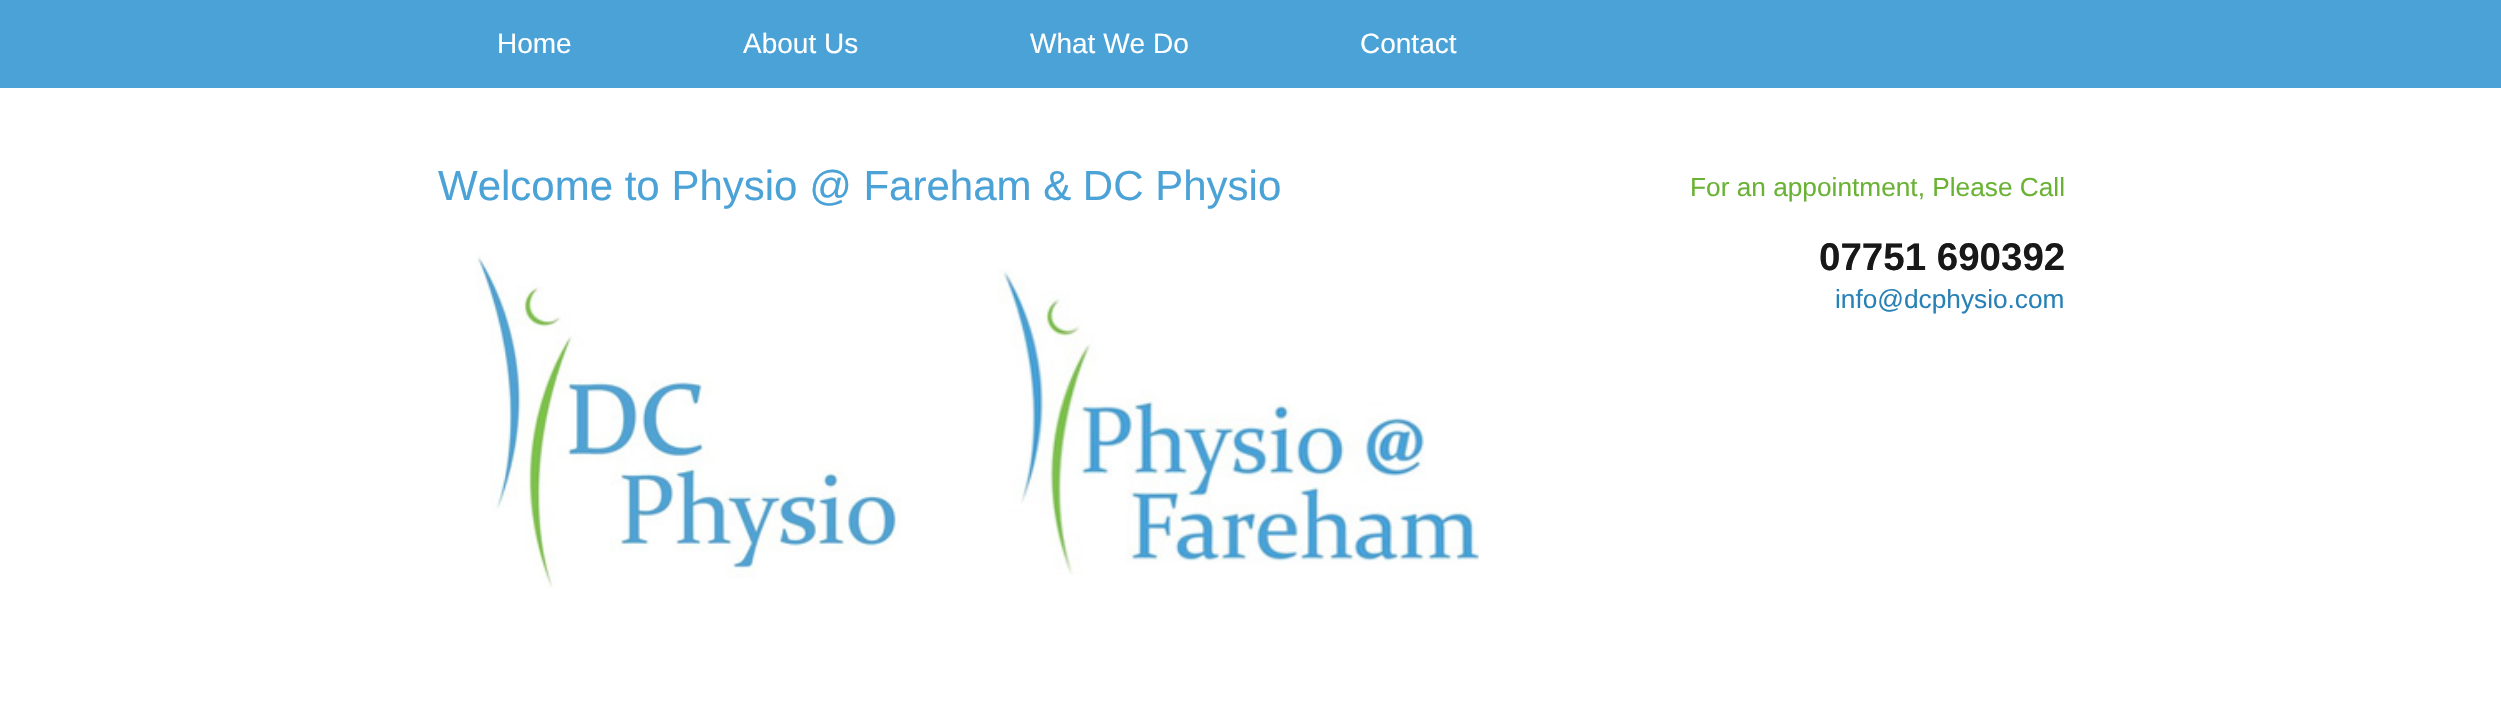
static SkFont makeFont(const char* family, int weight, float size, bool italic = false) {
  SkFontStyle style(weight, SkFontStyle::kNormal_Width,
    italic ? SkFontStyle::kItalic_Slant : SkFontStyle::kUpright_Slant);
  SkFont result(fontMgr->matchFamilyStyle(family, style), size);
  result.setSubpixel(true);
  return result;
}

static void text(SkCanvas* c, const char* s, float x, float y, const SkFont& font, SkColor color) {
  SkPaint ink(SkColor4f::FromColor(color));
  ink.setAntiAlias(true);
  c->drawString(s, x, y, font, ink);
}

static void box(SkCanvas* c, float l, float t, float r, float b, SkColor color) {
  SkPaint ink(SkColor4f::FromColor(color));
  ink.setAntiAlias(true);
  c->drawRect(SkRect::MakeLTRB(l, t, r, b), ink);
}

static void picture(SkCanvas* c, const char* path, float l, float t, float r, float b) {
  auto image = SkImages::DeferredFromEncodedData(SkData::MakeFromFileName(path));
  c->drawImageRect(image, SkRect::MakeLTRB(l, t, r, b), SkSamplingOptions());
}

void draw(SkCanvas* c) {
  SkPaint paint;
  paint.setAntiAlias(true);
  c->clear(0xffffffff);
  box(c, 0, 0, 2501, 88, 0xff4aa2d6);
  SkFont face1 = makeFont("Liberation Sans", 400, 28);
  text(c, "Home", 497, 53, face1, 0xffffffff);
  text(c, "About Us", 743, 53, face1, 0xffffffff);
  text(c, "What We Do", 1030, 53, face1, 0xffffffff);
  text(c, "Contact", 1360, 53, face1, 0xffffffff);
  SkFont face2 = makeFont("Liberation Sans", 400, 42);
  text(c, "Welcome to Physio @ Fareham & DC Physio", 438, 200, face2, 0xff4aa2d6);
  picture(c, "img_01.png", 474, 252, 901, 588);
  picture(c, "img_02.png", 997, 268, 1479, 575);
  SkFont face3 = makeFont("Liberation Sans", 400, 26.25f);
  text(c, "For an appointment, Please Call", 1690, 196, face3, 0xff6ab234);
  SkFont face4 = makeFont("Liberation Sans", 700, 38.5f);
  text(c, "07751 690392", 1819, 270, face4, 0xff181818);
  text(c, "info@dcphysio.com", 1835, 308, face3, 0xff2881b6);
}
